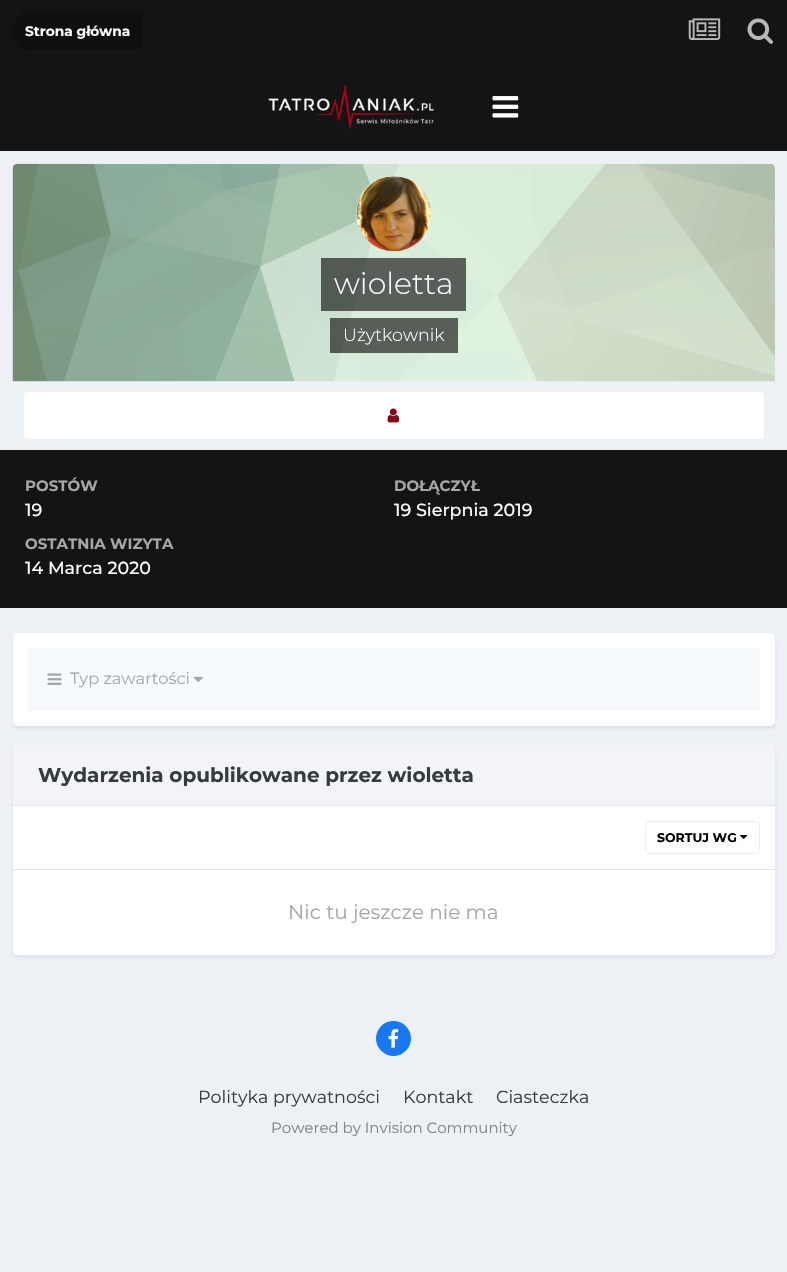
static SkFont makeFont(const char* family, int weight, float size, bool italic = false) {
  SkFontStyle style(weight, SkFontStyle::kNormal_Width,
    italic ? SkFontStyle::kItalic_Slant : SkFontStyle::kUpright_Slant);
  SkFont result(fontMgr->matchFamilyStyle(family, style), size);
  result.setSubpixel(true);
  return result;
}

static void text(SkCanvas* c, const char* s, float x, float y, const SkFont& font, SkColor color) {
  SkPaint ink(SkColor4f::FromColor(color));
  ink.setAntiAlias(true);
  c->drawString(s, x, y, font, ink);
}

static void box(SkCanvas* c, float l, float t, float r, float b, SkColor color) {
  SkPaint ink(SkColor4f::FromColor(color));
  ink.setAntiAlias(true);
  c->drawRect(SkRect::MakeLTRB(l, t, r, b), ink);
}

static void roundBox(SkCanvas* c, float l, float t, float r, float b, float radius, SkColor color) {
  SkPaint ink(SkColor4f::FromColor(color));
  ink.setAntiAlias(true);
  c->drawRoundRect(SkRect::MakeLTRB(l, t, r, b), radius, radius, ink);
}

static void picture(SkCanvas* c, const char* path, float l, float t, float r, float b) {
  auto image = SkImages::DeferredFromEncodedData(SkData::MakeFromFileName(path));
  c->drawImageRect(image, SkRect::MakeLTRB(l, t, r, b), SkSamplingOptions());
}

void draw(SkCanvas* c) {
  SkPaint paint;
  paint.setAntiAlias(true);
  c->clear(0xffedf0f4);
  box(c, 0, 0, 787, 151, 0xff141414);
  picture(c, "img_01.png", 268, 84, 434, 130);
  picture(c, "img_02.png", 492, 96, 519, 118);
  paint.setColor(0xff0f0f0f);
  c->drawPath(SkPathBuilder().moveTo(25, 13).lineTo(137, 13).cubicTo(140.5f, 13, 143, 15.5f, 143, 19).lineTo(143, 44).cubicTo(143, 47.5f, 140.5f, 50, 137, 50).lineTo(25, 50).close().detach(), paint);
  c->drawPath(SkPathBuilder().moveTo(25, 49.5f).cubicTo(19.5f, 49.5f, 16.5f, 43, 14, 39.5f).cubicTo(12, 37, 9.5f, 34.5f, 9.5f, 31).lineTo(25, 31).close().moveTo(25, 12.5f).lineTo(25, 31).lineTo(9.5f, 31).cubicTo(9, 29, 11.5f, 26.5f, 12.5f, 25).cubicTo(15.5f, 21, 19.5f, 12.5f, 25, 12.5f).close().detach(), paint);
  SkFont face1 = makeFont("Montserrat", 700, 13.75f);
  text(c, "Strona główna", 25, 36, face1, 0xfffcfcfc);
  picture(c, "img_03.png", 688, 18, 721, 40);
  picture(c, "img_04.png", 747, 18, 773, 44);
  paint.setColor(0xff99ff9e);
  c->drawPath(SkPathBuilder().moveTo(18, 164).lineTo(770, 164).cubicTo(773, 164, 775, 166, 775, 169).lineTo(775, 381).lineTo(13, 381).lineTo(13, 169).cubicTo(13, 166, 15, 164, 18, 164).close().detach(), paint);
  box(c, 13, 381, 775, 450, 0xffedf2f7);
  picture(c, "img_05.png", 12, 163, 775, 382);
  paint.setColor(0xffffffff);
  c->drawCircle(393.5f, 213.5f, 37.5f, paint);
  picture(c, "img_06.png", 356, 176, 431, 252);
  box(c, 321, 258, 466, 311, 0x99000000);
  SkFont face2 = makeFont("Montserrat", 300, 30);
  text(c, "wioletta", 334, 294, face2, 0xfffcfcfc);
  box(c, 330, 318, 458, 353, 0x99000000);
  SkFont face3 = makeFont("Montserrat", 300, 17.5f);
  text(c, "Użytkownik", 343, 341, face3, 0xfffcfcfc);
  roundBox(c, 23, 391, 765, 440, 5, 0xffffffff);
  paint.setStyle(SkPaint::kStroke_Style);
  paint.setStrokeWidth(1);
  paint.setColor(0x12870015);
  c->drawRoundRect(SkRect::MakeLTRB(23.5f, 391.5f, 764.5f, 439.5f), 4.5f, 4.5f, paint);
  picture(c, "img_07.png", 387, 408, 400, 423);
  box(c, 0, 450, 787, 608, 0xff141414);
  SkFont face4 = makeFont("Montserrat", 700, 15);
  text(c, "POSTÓW", 25, 491, face4, 0xffa3a7a8);
  SkFont face5 = makeFont("Montserrat", 500, 17.5f);
  text(c, "19", 25, 516, face5, 0xfffcfcfc);
  text(c, "DOŁĄCZYŁ", 394, 491, face4, 0xffa3a7a8);
  text(c, "19 Sierpnia 2019", 394, 516, face5, 0xfffcfcfc);
  text(c, "OSTATNIA WIZYTA", 25, 549, face4, 0xffa3a7a8);
  text(c, "14 Marca 2020", 25, 574, face5, 0xfffcfcfc);
  paint.setStyle(SkPaint::kFill_Style);
  paint.setColor(0x1a141414);
  paint.setMaskFilter(SkMaskFilter::MakeBlur(kNormal_SkBlurStyle, 2.5f));
  c->drawRoundRect(SkRect::MakeLTRB(14, 636, 774, 728), 4, 4, paint);
  paint.setMaskFilter(nullptr);
  roundBox(c, 13, 633, 775, 726, 5, 0xffffffff);
  box(c, 28, 648, 760, 711, 0xfff7fafc);
  picture(c, "img_08.png", 47, 673, 62, 685);
  SkFont face6 = makeFont("Montserrat", 400, 16.25f);
  text(c, "Typ zawartości", 70, 684, face6, 0xffa3a7a8);
  picture(c, "img_09.png", 193, 676, 203, 682);
  paint.setMaskFilter(SkMaskFilter::MakeBlur(kNormal_SkBlurStyle, 2.5f));
  c->drawRoundRect(SkRect::MakeLTRB(14, 749, 774, 956), 4, 4, paint);
  paint.setMaskFilter(nullptr);
  roundBox(c, 13, 745, 775, 955, 5, 0xffffffff);
  paint.setColor(0xfff2f4f7);
  c->drawPath(SkPathBuilder().moveTo(18, 745).lineTo(770, 745).cubicTo(773, 745, 775, 747, 775, 750).lineTo(775, 806).lineTo(13, 806).lineTo(13, 750).cubicTo(13, 747, 15, 745, 18, 745).close().detach(), paint);
  box(c, 13, 805, 775, 806, 0xffe6e8eb);
  SkFont face7 = makeFont("Montserrat", 700, 20);
  text(c, "Wydarzenia opublikowane przez wioletta", 38, 782, face7, 0xff353c41);
  box(c, 13, 869, 775, 870, 0xffe1e2e3);
  picture(c, "img_10.png", 740, 835, 748, 839);
  paint.setStyle(SkPaint::kStroke_Style);
  paint.setColor(0xffebecec);
  c->drawRoundRect(SkRect::MakeLTRB(645.5f, 821.5f, 759.5f, 853.5f), 4.5f, 4.5f, paint);
  SkFont face8 = makeFont("Montserrat", 700, 12.5f);
  text(c, "SORTUJ WG", 657, 842, face8, 0xff000000);
  SkFont face9 = makeFont("Montserrat", 400, 20);
  text(c, "Nic tu jeszcze nie ma", 288, 919, face9, 0xffa3a7a8);
  paint.setStyle(SkPaint::kFill_Style);
  paint.setColor(0xff1778f2);
  c->drawCircle(393.5f, 1038.5f, 17.5f, paint);
  picture(c, "img_11.png", 388, 1029, 399, 1048);
  SkFont face10 = makeFont("Montserrat", 400, 17.5f);
  text(c, "Polityka prywatności", 198, 1103, face10, 0xff353c41);
  text(c, "Kontakt", 403, 1103, face10, 0xff353c41);
  text(c, "Ciasteczka", 496, 1103, face10, 0xff353c41);
  SkFont face11 = makeFont("Montserrat", 400, 15);
  text(c, "Powered by Invision Community", 271, 1133, face11, 0xff7f8489);
}
